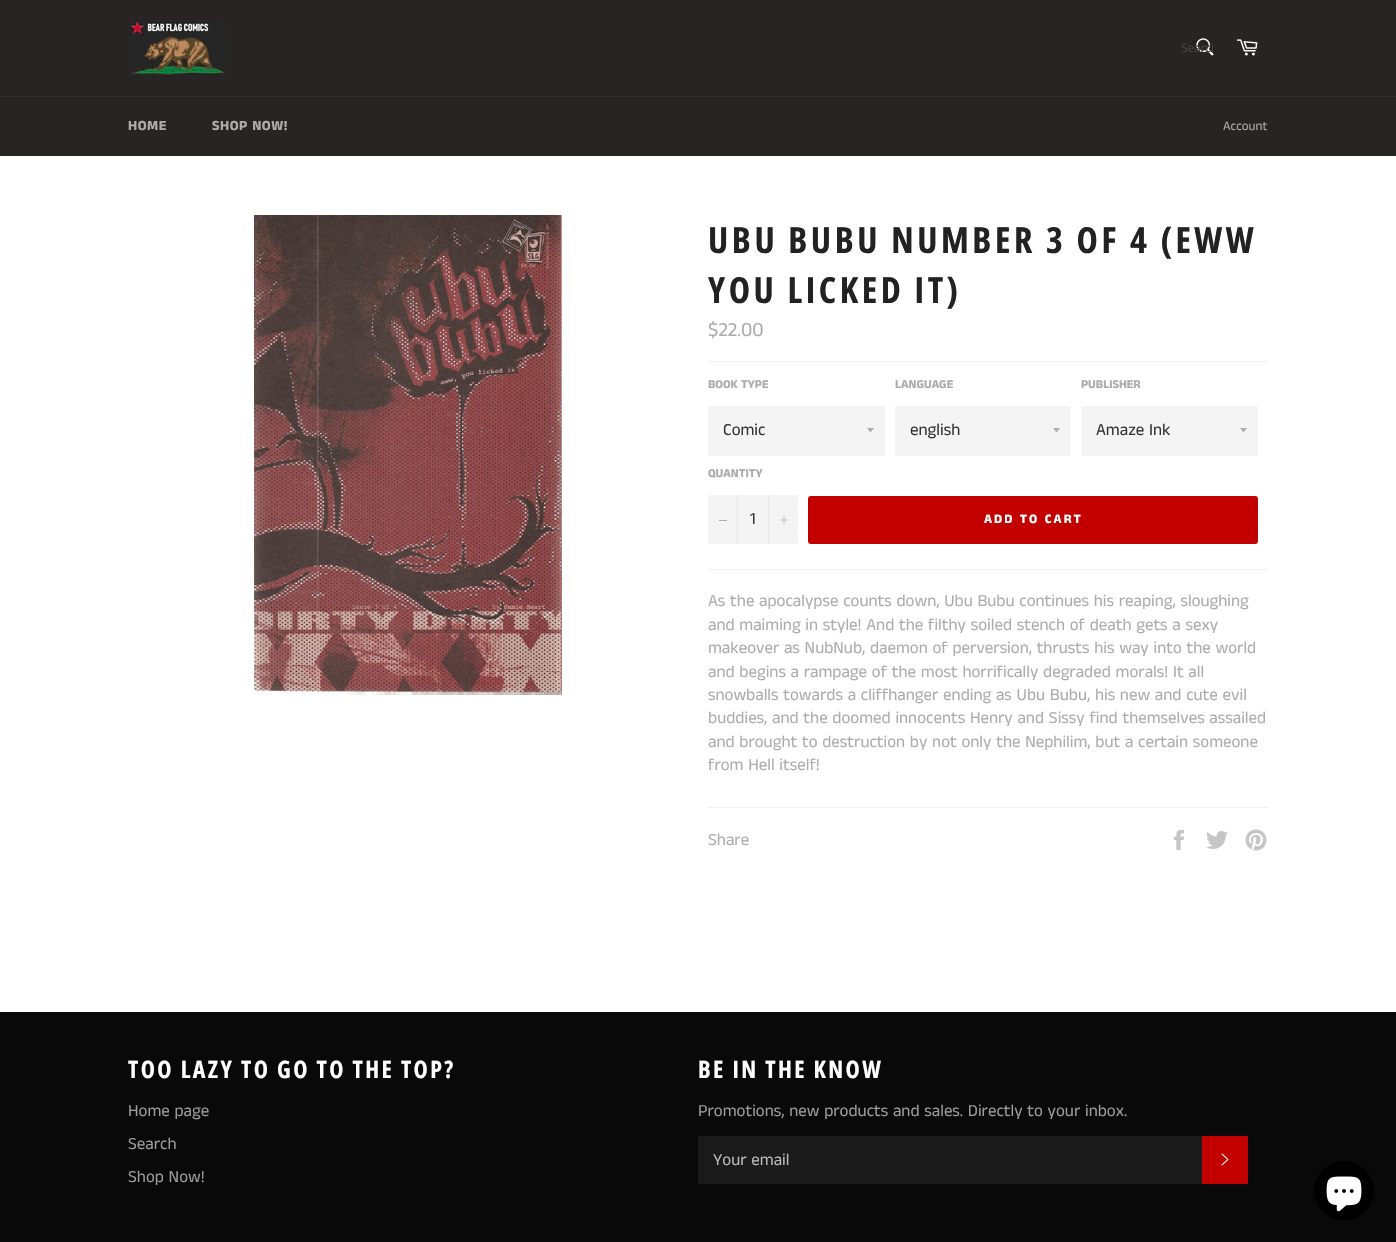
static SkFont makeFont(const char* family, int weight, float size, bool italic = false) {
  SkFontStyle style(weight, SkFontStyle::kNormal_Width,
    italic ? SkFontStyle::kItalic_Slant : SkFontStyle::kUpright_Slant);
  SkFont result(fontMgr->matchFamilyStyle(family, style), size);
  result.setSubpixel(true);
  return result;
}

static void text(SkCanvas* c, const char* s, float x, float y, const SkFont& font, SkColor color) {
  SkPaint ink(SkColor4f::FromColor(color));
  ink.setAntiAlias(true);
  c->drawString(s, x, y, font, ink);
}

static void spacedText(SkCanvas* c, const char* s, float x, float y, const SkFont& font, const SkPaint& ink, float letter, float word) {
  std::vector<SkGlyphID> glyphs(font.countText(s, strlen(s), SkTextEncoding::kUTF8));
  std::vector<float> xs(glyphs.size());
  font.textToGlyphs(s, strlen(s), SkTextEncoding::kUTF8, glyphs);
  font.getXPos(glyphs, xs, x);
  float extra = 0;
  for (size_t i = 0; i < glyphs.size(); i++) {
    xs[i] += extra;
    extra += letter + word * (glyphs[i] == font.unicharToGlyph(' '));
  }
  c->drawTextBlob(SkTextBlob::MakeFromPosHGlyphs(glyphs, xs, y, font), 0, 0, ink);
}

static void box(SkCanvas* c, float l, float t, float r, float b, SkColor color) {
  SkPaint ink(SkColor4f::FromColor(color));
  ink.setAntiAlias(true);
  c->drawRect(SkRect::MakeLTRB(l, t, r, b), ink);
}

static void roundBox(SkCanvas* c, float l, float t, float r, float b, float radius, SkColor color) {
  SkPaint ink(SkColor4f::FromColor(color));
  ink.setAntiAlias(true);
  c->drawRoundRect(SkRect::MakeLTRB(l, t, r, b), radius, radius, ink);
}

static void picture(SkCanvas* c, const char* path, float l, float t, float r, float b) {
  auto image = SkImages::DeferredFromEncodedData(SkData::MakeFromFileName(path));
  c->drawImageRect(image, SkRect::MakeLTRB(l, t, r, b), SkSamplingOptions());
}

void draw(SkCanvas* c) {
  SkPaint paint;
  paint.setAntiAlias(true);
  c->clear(0xff282424);
  picture(c, "img_01.png", 128, 20, 227, 76);
  picture(c, "img_02.png", 1196, 38, 1214, 56);
  c->save();
  c->clipRect(SkRect::MakeLTRB(1181, 39, 1213, 58));
  SkFont face1 = makeFont("Anek Tamil", 400, 13);
  text(c, "Search", 1181, 52, face1, 0xff454141);
  c->restore();
  picture(c, "img_03.png", 1236, 39, 1258, 56);
  box(c, 0, 96, 1396, 97, 0xff353030);
  SkFont face2 = makeFont("Anek Tamil", 700, 14);
  paint.setColor(0xffacacac);
  spacedText(c, "HOME", 128, 130, face2, paint, 0.5f, 0);
  spacedText(c, "SHOP NOW!", 212, 130, face2, paint, 0.5f, 0);
  text(c, "Account", 1223, 130, face1, 0xffacacac);
  box(c, 0, 156, 1396, 1012, 0xffffffff);
  picture(c, "img_04.png", 254, 215, 562, 695);
  SkFont face3 = makeFont("Open Sans Condensed", 700, 36);
  paint.setColor(0xff222222);
  spacedText(c, "UBU BUBU NUMBER 3 OF 4 (EWW", 708, 253, face3, paint, 3.6f, 0);
  spacedText(c, "YOU LICKED IT)", 708, 303, face3, paint, 3.6f, 0);
  SkFont face4 = makeFont("Anek Tamil", 400, 20);
  text(c, "$22.00", 708, 336, face4, 0xffacacac);
  box(c, 708, 361, 1268, 362, 0xfff0f0f0);
  SkFont face5 = makeFont("Anek Tamil", 700, 12);
  text(c, "BOOK TYPE", 708, 388, face5, 0xffacacac);
  box(c, 708, 406, 885, 456, 0xfff4f4f4);
  paint.setColor(0xffacacac);
  c->drawPath(SkPathBuilder().moveTo(867, 428).cubicTo(871.5f, 433.5f, 869.5f, 433.5f, 874, 428).close().detach(), paint);
  SkFont face6 = makeFont("Anek Tamil", 400, 17);
  text(c, "Comic", 723, 435, face6, 0xff333333);
  text(c, "LANGUAGE", 895, 388, face5, 0xffacacac);
  box(c, 895, 406, 1071, 456, 0xfff4f4f4);
  c->drawPath(SkPathBuilder().moveTo(1053, 428).cubicTo(1057.5f, 433.5f, 1055.5f, 433.5f, 1060, 428).close().detach(), paint);
  text(c, "english", 910, 435, face6, 0xff333333);
  text(c, "PUBLISHER", 1081, 388, face5, 0xffacacac);
  box(c, 1081, 406, 1258, 456, 0xfff4f4f4);
  c->drawPath(SkPathBuilder().moveTo(1240, 428).cubicTo(1244.5f, 433.5f, 1242.5f, 433.5f, 1247, 428).close().detach(), paint);
  text(c, "Amaze Ink", 1096, 435, face6, 0xff333333);
  text(c, "QUANTITY", 708, 477, face5, 0xffacacac);
  box(c, 708, 495, 798, 544, 0xfff4f4f4);
  box(c, 737, 495, 738, 544, 0xffe7e7e7);
  box(c, 719, 520, 727, 521, 0xffacacac);
  text(c, "1", 750, 524, face6, 0xff333333);
  box(c, 768, 495, 769, 544, 0xffe7e7e7);
  picture(c, "img_05.png", 780, 516, 788, 524);
  roundBox(c, 808, 496, 1258, 544, 3, 0xffc20000);
  SkFont face7 = makeFont("Anek Tamil", 700, 13);
  paint.setColor(0xffffffff);
  spacedText(c, "ADD TO CART", 984, 523, face7, paint, 2, 0);
  box(c, 708, 569, 1268, 570, 0xfff0f0f0);
  text(c, "As the apocalypse counts down, Ubu Bubu continues his reaping, sloughing", 708, 606, face6, 0xffacacac);
  text(c, "and maiming in style! And the filthy soiled stench of death gets a sexy", 708, 630, face6, 0xffacacac);
  text(c, "makeover as NubNub, daemon of perversion, thrusts his way into the world", 708, 653, face6, 0xffacacac);
  text(c, "and begins a rampage of the most horrifically degraded morals! It all", 708, 677, face6, 0xffacacac);
  text(c, "snowballs towards a cliffhanger ending as Ubu Bubu, his new and cute evil", 708, 700, face6, 0xffacacac);
  text(c, "buddies, and the doomed innocents Henry and Sissy find themselves assailed", 708, 723, face6, 0xffacacac);
  text(c, "and brought to destruction by not only the Nephilim, but a certain someone", 708, 747, face6, 0xffacacac);
  text(c, "from Hell itself!", 708, 770, face6, 0xffacacac);
  box(c, 708, 807, 1268, 808, 0xfff0f0f0);
  text(c, "Share", 708, 845, face6, 0xffacacac);
  picture(c, "img_06.png", 1174, 830, 1184, 850);
  picture(c, "img_07.png", 1206, 831, 1228, 849);
  picture(c, "img_08.png", 1245, 829, 1267, 851);
  box(c, 0, 1012, 1396, 1242, 0xff0a0909);
  SkFont face8 = makeFont("Open Sans Condensed", 700, 24);
  spacedText(c, "TOO LAZY TO GO TO THE TOP?", 128, 1078, face8, paint, 2.4f, 0);
  text(c, "Home page", 128, 1116, face6, 0xff9d9d9d);
  text(c, "Search", 128, 1149, face6, 0xff9d9d9d);
  text(c, "Shop Now!", 128, 1182, face6, 0xff9d9d9d);
  spacedText(c, "BE IN THE KNOW", 698, 1078, face8, paint, 2.4f, 0);
  text(c, "Promotions, new products and sales. Directly to your inbox.", 698, 1116, face6, 0xff9d9d9d);
  box(c, 698, 1136, 1202, 1184, 0xff1a1a1a);
  text(c, "Your email", 713, 1165, face6, 0xffbababa);
  box(c, 1202, 1136, 1248, 1184, 0xffc20000);
  picture(c, "img_09.png", 1221, 1153, 1229, 1166);
  paint.setColor(0xff000000);
  c->drawCircle(1344, 1191, 30, paint);
  picture(c, "img_10.png", 1326, 1176, 1362, 1212);
}
